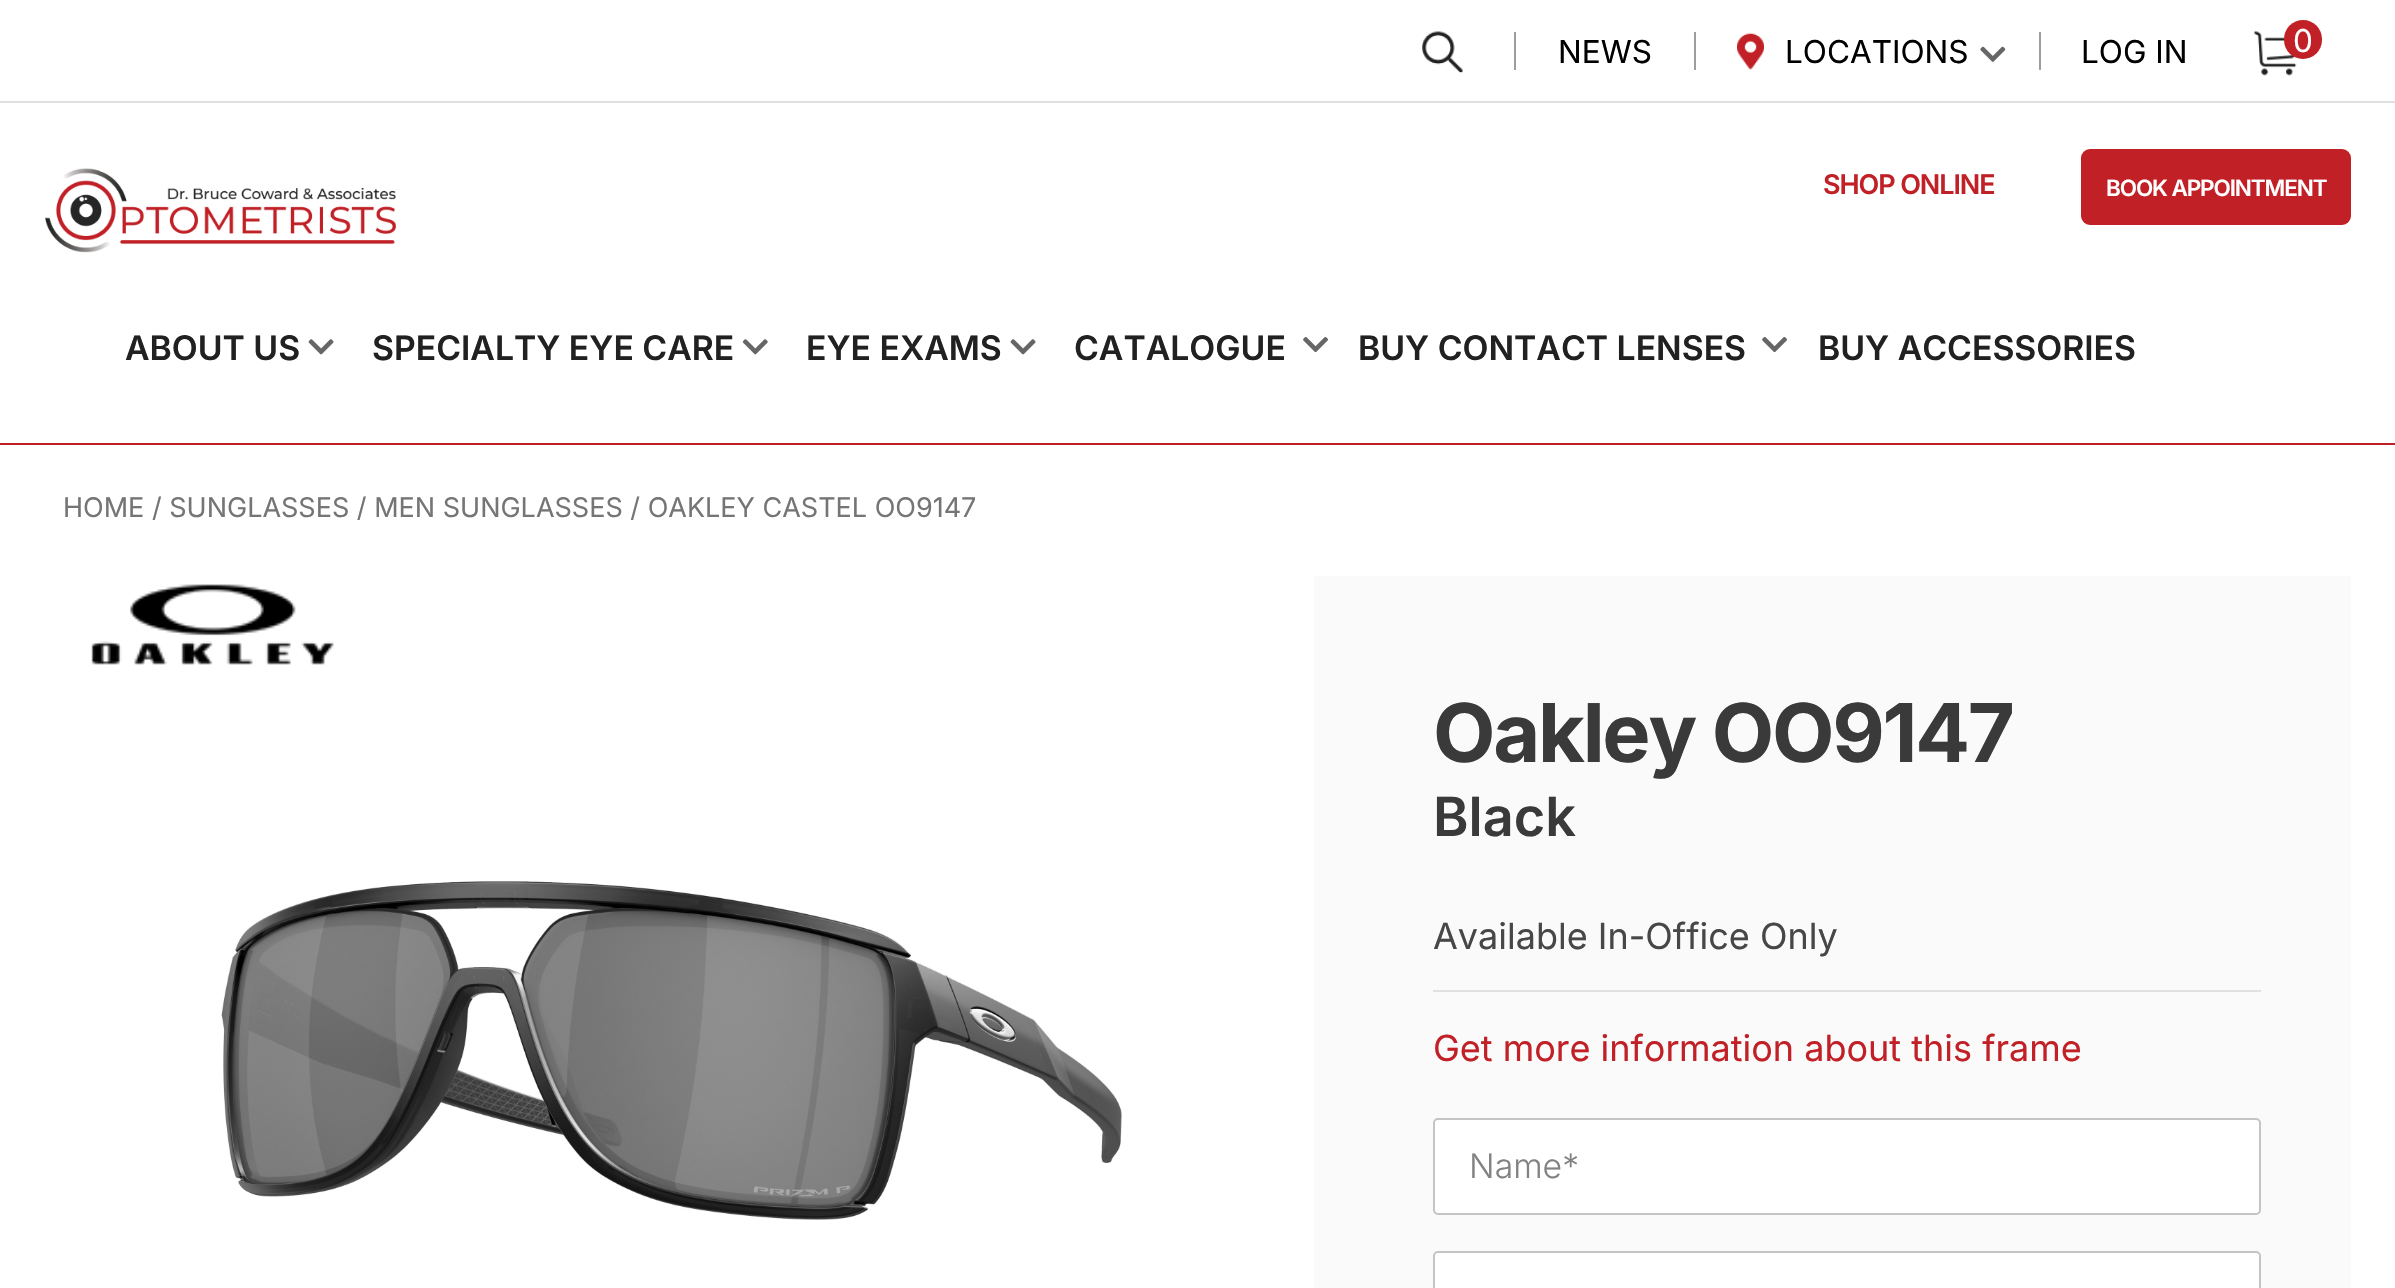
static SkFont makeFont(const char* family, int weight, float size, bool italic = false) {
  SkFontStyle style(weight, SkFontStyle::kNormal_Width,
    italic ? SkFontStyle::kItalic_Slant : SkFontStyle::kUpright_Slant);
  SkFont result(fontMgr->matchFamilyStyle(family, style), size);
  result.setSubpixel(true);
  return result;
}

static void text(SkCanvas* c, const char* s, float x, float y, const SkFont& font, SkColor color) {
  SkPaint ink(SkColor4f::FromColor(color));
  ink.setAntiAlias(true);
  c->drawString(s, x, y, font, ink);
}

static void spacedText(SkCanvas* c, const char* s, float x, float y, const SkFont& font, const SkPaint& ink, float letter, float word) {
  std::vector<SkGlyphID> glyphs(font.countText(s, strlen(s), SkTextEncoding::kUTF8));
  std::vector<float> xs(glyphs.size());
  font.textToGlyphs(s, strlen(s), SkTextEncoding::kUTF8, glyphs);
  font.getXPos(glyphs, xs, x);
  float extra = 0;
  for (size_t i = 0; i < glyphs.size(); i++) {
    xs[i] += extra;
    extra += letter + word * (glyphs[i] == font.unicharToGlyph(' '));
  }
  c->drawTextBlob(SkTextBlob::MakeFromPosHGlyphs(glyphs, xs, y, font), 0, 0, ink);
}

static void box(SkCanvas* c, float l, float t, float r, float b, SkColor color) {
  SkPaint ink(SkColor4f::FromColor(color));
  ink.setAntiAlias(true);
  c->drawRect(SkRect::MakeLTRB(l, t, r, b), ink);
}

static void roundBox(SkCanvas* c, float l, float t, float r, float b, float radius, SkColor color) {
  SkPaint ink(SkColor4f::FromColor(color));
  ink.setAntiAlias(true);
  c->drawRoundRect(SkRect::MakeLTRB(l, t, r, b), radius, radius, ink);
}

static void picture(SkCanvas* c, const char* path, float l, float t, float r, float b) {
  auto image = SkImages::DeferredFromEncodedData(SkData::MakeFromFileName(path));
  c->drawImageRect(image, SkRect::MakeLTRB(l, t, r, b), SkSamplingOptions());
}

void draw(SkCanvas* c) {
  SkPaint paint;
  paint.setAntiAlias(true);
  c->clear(0xffffffff);
  box(c, 0, 101, 2395, 103, 0xffe0e0e0);
  picture(c, "img_01.png", 1422, 31, 1463, 73);
  box(c, 1514, 32, 1516, 70, 0xff9e9e9e);
  SkFont face1 = makeFont("Inter", 400, 31.5f);
  text(c, "NEWS", 1558, 63, face1, 0xff000000);
  box(c, 1694, 32, 1696, 70, 0xff9e9e9e);
  picture(c, "img_02.png", 1737, 33, 1764, 70);
  text(c, "LOCATIONS", 1785, 63, face1, 0xff000000);
  picture(c, "img_03.png", 1980, 46, 2006, 62);
  box(c, 2039, 32, 2041, 70, 0xff9e9e9e);
  text(c, "LOG IN", 2081, 63, face1, 0xff000000);
  picture(c, "img_04.png", 2253, 31, 2297, 76);
  roundBox(c, 2284, 20, 2322, 59, 19, 0xffc12026);
  text(c, "0", 2293, 52, face1, 0xffffffff);
  picture(c, "img_05.png", 45, 168, 396, 253);
  SkFont face2 = makeFont("Inter", 600, 27);
  paint.setColor(0xffc12026);
  spacedText(c, "SHOP ONLINE", 1823, 194, face2, paint, -1.1f, 0);
  c->drawRoundRect(SkRect::MakeLTRB(2082, 150, 2350, 224), 8, 8, paint);
  paint.setStyle(SkPaint::kStroke_Style);
  paint.setStrokeWidth(2);
  c->drawRoundRect(SkRect::MakeLTRB(2082, 150, 2350, 224), 8, 8, paint);
  SkFont face3 = makeFont("Inter", 600, 22.5f);
  paint.setStyle(SkPaint::kFill_Style);
  paint.setColor(0xffffffff);
  spacedText(c, "BOOK APPOINTMENT", 2106, 196, face3, paint, -1.1f, 0);
  SkFont face4 = makeFont("Inter", 600, 33.75f);
  text(c, "ABOUT US", 125, 360, face4, 0xff212121);
  picture(c, "img_06.png", 308, 339, 334, 355);
  text(c, "SPECIALTY EYE CARE", 372, 360, face4, 0xff212121);
  picture(c, "img_07.png", 742, 339, 768, 355);
  text(c, "EYE EXAMS", 806, 360, face4, 0xff212121);
  picture(c, "img_06.png", 1010, 339, 1036, 355);
  text(c, "CATALOGUE", 1074, 360, face4, 0xff212121);
  picture(c, "img_08.png", 1303, 337, 1328, 353);
  text(c, "BUY CONTACT LENSES", 1358, 360, face4, 0xff212121);
  picture(c, "img_08.png", 1762, 337, 1787, 353);
  text(c, "BUY ACCESSORIES", 1818, 360, face4, 0xff212121);
  box(c, 0, 443, 2395, 445, 0xffc12026);
  SkFont face5 = makeFont("Inter", 400, 27);
  text(c, "HOME / SUNGLASSES / MEN SUNGLASSES / OAKLEY CASTEL OO9147", 63, 517, face5, 0xff757575);
  picture(c, "img_09.png", 91, 584, 334, 665);
  picture(c, "img_10.png", 221, 881, 1122, 1220);
  box(c, 1314, 576, 2351, 1288, 0xfffafafa);
  SkFont face6 = makeFont("Inter", 700, 81);
  paint.setColor(0xff3a3a3a);
  spacedText(c, "Oakley OO9147", 1433, 762, face6, paint, -2.25f, 0);
  SkFont face7 = makeFont("Inter", 600, 54);
  text(c, "Black", 1433, 836, face7, 0xff3a3a3a);
  SkFont face8 = makeFont("Inter", 400, 36);
  text(c, "Available In-Office Only", 1433, 949, face8, 0xff474747);
  box(c, 1433, 990, 2261, 992, 0xffe1e1e1);
  text(c, "Get more information about this frame", 1433, 1061, face8, 0xffc12026);
  paint.setColor(0xffffffff);
  c->drawRoundRect(SkRect::MakeLTRB(1434, 1119, 2260, 1214), 4, 4, paint);
  paint.setStyle(SkPaint::kStroke_Style);
  paint.setColor(0xffc4c4c4);
  c->drawRoundRect(SkRect::MakeLTRB(1434, 1119, 2260, 1214), 4, 4, paint);
  SkFont face9 = makeFont("Inter", 300, 33.75f);
  text(c, "Name*", 1469, 1178, face9, 0xff828282);
  paint.setStyle(SkPaint::kFill_Style);
  paint.setColor(0xffffffff);
  c->drawRoundRect(SkRect::MakeLTRB(1434, 1252, 2260, 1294), 4, 4, paint);
  paint.setStyle(SkPaint::kStroke_Style);
  paint.setColor(0xffc4c4c4);
  c->drawRoundRect(SkRect::MakeLTRB(1434, 1252, 2260, 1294), 4, 4, paint);
}
